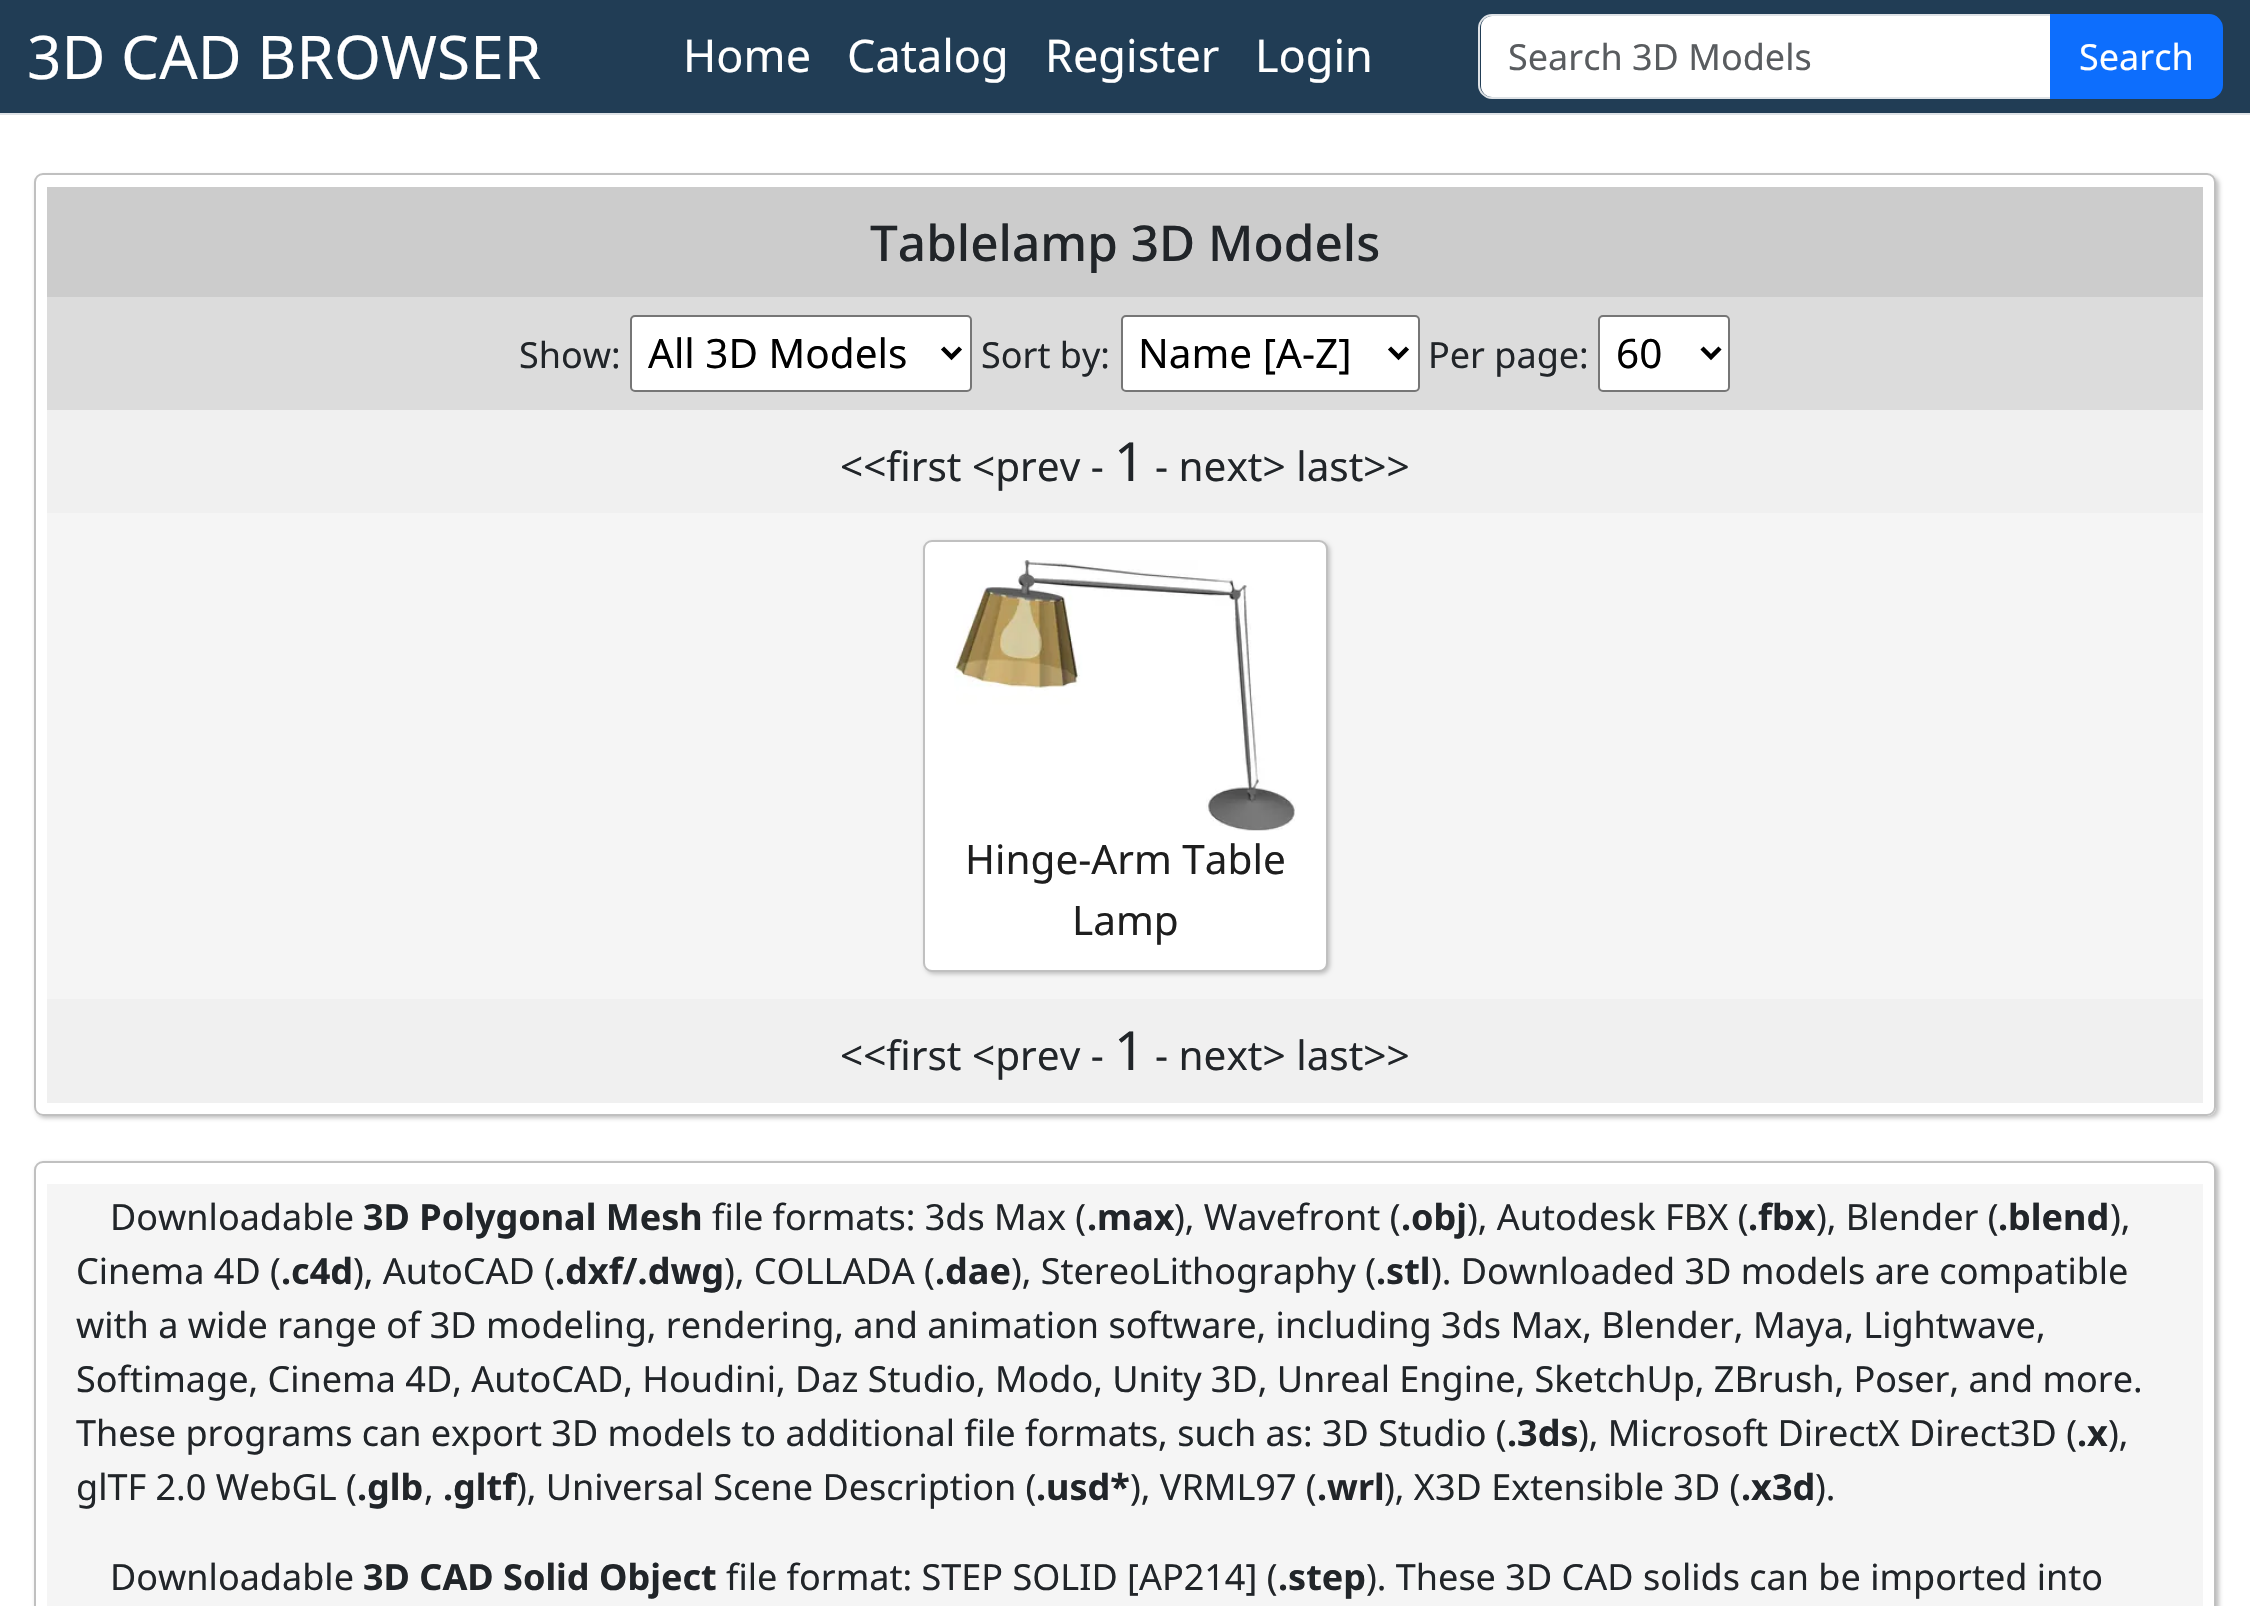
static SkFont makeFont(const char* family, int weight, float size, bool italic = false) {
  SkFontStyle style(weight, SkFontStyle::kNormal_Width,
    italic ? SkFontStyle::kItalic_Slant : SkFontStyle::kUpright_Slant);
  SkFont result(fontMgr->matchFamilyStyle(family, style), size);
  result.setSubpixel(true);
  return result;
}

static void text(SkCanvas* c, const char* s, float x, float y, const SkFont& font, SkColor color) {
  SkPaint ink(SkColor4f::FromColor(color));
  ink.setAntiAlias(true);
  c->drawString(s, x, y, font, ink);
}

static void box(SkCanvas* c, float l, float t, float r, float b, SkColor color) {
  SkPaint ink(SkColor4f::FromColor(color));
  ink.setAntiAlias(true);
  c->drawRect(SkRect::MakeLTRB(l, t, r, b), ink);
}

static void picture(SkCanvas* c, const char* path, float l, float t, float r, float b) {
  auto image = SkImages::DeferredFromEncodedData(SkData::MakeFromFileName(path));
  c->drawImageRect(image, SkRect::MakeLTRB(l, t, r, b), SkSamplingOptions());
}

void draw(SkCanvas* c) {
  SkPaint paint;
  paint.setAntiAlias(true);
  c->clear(0xffffffff);
  box(c, 0, 0, 2250, 113, 0xff213d55);
  box(c, 0, 113, 2250, 115, 0xffdee2e6);
  SkFont face1 = makeFont("Noto Sans", 400, 60.25f);
  text(c, "3D CAD BROWSER", 27, 79, face1, 0xffffffff);
  SkFont face2 = makeFont("Noto Sans", 400, 45);
  text(c, "Home", 683, 72, face2, 0xffffffff);
  text(c, "Catalog", 847, 72, face2, 0xffffffff);
  text(c, "Register", 1045, 72, face2, 0xffffffff);
  text(c, "Login", 1255, 72, face2, 0xffffffff);
  paint.setColor(0xffffffff);
  c->drawPath(SkPathBuilder().moveTo(1492, 16).lineTo(2050, 16).lineTo(2050, 97).lineTo(1492, 97).cubicTo(1486, 97, 1481, 92, 1481, 86).lineTo(1481, 27).cubicTo(1481, 21, 1486, 16, 1492, 16).close().detach(), paint);
  paint.setStyle(SkPaint::kStroke_Style);
  paint.setStrokeWidth(2);
  paint.setColor(0xffdee2e6);
  c->drawPath(SkPathBuilder().moveTo(1492, 15).lineTo(2051, 15).lineTo(2051, 98).lineTo(1492, 98).cubicTo(1485, 98, 1479, 92, 1479, 85).lineTo(1479, 28).cubicTo(1479, 21, 1485, 15, 1492, 15).close().detach(), paint);
  SkFont face3 = makeFont("Noto Sans", 400, 36);
  text(c, "Search 3D Models", 1508, 70, face3, 0xff595c5f);
  paint.setStyle(SkPaint::kFill_Style);
  paint.setColor(0xff0d6efd);
  c->drawPath(SkPathBuilder().moveTo(2051, 15).lineTo(2209, 15).cubicTo(2216, 15, 2222, 21, 2222, 28).lineTo(2222, 85).cubicTo(2222, 92, 2216, 98, 2209, 98).lineTo(2051, 98).close().detach(), paint);
  paint.setStyle(SkPaint::kStroke_Style);
  c->drawPath(SkPathBuilder().moveTo(2051, 15).lineTo(2209, 15).cubicTo(2216, 15, 2222, 21, 2222, 28).lineTo(2222, 85).cubicTo(2222, 92, 2216, 98, 2209, 98).lineTo(2051, 98).close().detach(), paint);
  text(c, "Search", 2079, 70, face3, 0xffffffff);
  c->save();
  c->clipPath(SkPathBuilder(SkPathFillType::kEvenOdd).moveTo(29, 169).lineTo(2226, 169).lineTo(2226, 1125).lineTo(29, 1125).close().moveTo(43, 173).lineTo(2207, 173).cubicTo(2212, 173, 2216, 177, 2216, 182).lineTo(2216, 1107).cubicTo(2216, 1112, 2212, 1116, 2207, 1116).lineTo(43, 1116).cubicTo(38, 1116, 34, 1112, 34, 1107).lineTo(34, 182).cubicTo(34, 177, 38, 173, 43, 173).close().detach(), true);
  paint.setStyle(SkPaint::kFill_Style);
  paint.setColor(0xffc0c0c0);
  paint.setMaskFilter(SkMaskFilter::MakeBlur(kNormal_SkBlurStyle, 2));
  c->drawRoundRect(SkRect::MakeLTRB(36, 176, 2219, 1118), 9, 9, paint);
  paint.setMaskFilter(nullptr);
  c->restore();
  paint.setStyle(SkPaint::kStroke_Style);
  c->drawRoundRect(SkRect::MakeLTRB(35, 174, 2215, 1115), 8, 8, paint);
  box(c, 47, 187, 2203, 297, 0xffcccccc);
  SkFont face4 = makeFont("Noto Sans", 500, 49.5f);
  text(c, "Tablelamp 3D Models", 870, 261, face4, 0xff212529);
  box(c, 47, 297, 2203, 410, 0xffdcdcdc);
  text(c, "Show:", 519, 368, face3, 0xff212529);
  paint.setStyle(SkPaint::kFill_Style);
  paint.setColor(0xffffffff);
  c->drawRoundRect(SkRect::MakeLTRB(631, 316, 971, 391), 4, 4, paint);
  paint.setStyle(SkPaint::kStroke_Style);
  paint.setColor(0xff767676);
  c->drawRoundRect(SkRect::MakeLTRB(631, 316, 971, 391), 4, 4, paint);
  paint.setStrokeWidth(4.5f);
  paint.setColor(0xff000000);
  c->drawPath(SkPathBuilder().moveTo(942.5f, 348).lineTo(951.5f, 357).lineTo(960.5f, 348).detach(), paint);
  SkFont face5 = makeFont("Noto Sans", 400, 40.5f);
  text(c, "All 3D Models", 648, 368, face5, 0xff000000);
  text(c, "Sort by:", 981, 368, face3, 0xff212529);
  paint.setStyle(SkPaint::kFill_Style);
  paint.setColor(0xffffffff);
  c->drawRoundRect(SkRect::MakeLTRB(1122, 316, 1419, 391), 4, 4, paint);
  paint.setStyle(SkPaint::kStroke_Style);
  paint.setStrokeWidth(2);
  paint.setColor(0xff767676);
  c->drawRoundRect(SkRect::MakeLTRB(1122, 316, 1419, 391), 4, 4, paint);
  paint.setStrokeWidth(4.5f);
  paint.setColor(0xff000000);
  c->drawPath(SkPathBuilder().moveTo(1389.5f, 348).lineTo(1398.5f, 357).lineTo(1407.5f, 348).detach(), paint);
  text(c, "Name [A-Z]", 1138, 368, face5, 0xff000000);
  text(c, "Per page:", 1428, 368, face3, 0xff212529);
  paint.setStyle(SkPaint::kFill_Style);
  paint.setColor(0xffffffff);
  c->drawRoundRect(SkRect::MakeLTRB(1599, 316, 1729, 391), 4, 4, paint);
  paint.setStyle(SkPaint::kStroke_Style);
  paint.setStrokeWidth(2);
  paint.setColor(0xff767676);
  c->drawRoundRect(SkRect::MakeLTRB(1599, 316, 1729, 391), 4, 4, paint);
  paint.setStrokeWidth(4.5f);
  paint.setColor(0xff000000);
  c->drawPath(SkPathBuilder().moveTo(1702, 348).lineTo(1711, 357).lineTo(1720, 348).detach(), paint);
  text(c, "60", 1616, 368, face5, 0xff000000);
  box(c, 47, 410, 2203, 513, 0xfff0f0f0);
  text(c, "<<first <prev -", 840, 481, face5, 0xff212529);
  SkFont face6 = makeFont("Noto Sans", 400, 54);
  text(c, "1", 1114, 481, face6, 0xff212529);
  text(c, "- next> last>>", 1155, 481, face5, 0xff212529);
  box(c, 47, 513, 2203, 999, 0xfff5f5f5);
  paint.setStyle(SkPaint::kFill_Style);
  paint.setColor(0xffc0c0c0);
  paint.setMaskFilter(SkMaskFilter::MakeBlur(kNormal_SkBlurStyle, 2));
  c->drawRoundRect(SkRect::MakeLTRB(925, 542, 1330, 974), 9, 9, paint);
  paint.setMaskFilter(nullptr);
  paint.setColor(0xffffffff);
  c->drawRoundRect(SkRect::MakeLTRB(924, 541, 1327, 971), 8, 8, paint);
  paint.setStyle(SkPaint::kStroke_Style);
  paint.setStrokeWidth(2);
  paint.setColor(0xffc0c0c0);
  c->drawRoundRect(SkRect::MakeLTRB(924, 541, 1327, 971), 8, 8, paint);
  picture(c, "img_01.png", 954, 560, 1296, 831);
  text(c, "Hinge-Arm Table", 965, 874, face5, 0xff1e1e1e);
  text(c, "Lamp", 1072, 935, face5, 0xff1e1e1e);
  box(c, 47, 999, 2203, 1103, 0xfff0f0f0);
  text(c, "<<first <prev -", 840, 1070, face5, 0xff212529);
  text(c, "1", 1114, 1070, face6, 0xff212529);
  text(c, "- next> last>>", 1155, 1070, face5, 0xff212529);
  c->save();
  c->clipPath(SkPathBuilder(SkPathFillType::kEvenOdd).moveTo(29, 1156).lineTo(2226, 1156).lineTo(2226, 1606).lineTo(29, 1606).close().moveTo(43, 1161).lineTo(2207, 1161).cubicTo(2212, 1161, 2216, 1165, 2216, 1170).lineTo(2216, 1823).cubicTo(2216, 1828, 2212, 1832, 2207, 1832).lineTo(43, 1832).cubicTo(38, 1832, 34, 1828, 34, 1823).lineTo(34, 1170).cubicTo(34, 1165, 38, 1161, 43, 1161).close().detach(), true);
  paint.setStyle(SkPaint::kFill_Style);
  paint.setMaskFilter(SkMaskFilter::MakeBlur(kNormal_SkBlurStyle, 2));
  c->drawRoundRect(SkRect::MakeLTRB(36, 1163, 2219, 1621), 9, 9, paint);
  paint.setMaskFilter(nullptr);
  c->restore();
  paint.setStyle(SkPaint::kStroke_Style);
  c->drawRoundRect(SkRect::MakeLTRB(35, 1162, 2215, 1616), 8, 8, paint);
  box(c, 47, 1184, 2203, 1606, 0xfff5f5f5);
  text(c, "Downloadable", 110, 1230, face3, 0xff212529);
  SkFont face7 = makeFont("Noto Sans", 700, 36);
  text(c, "3D Polygonal Mesh", 363, 1230, face7, 0xff212529);
  text(c, "file formats: 3ds Max (", 712, 1230, face3, 0xff212529);
  text(c, ".max", 1087, 1230, face7, 0xff212529);
  text(c, "), Wavefront (", 1174, 1230, face3, 0xff212529);
  text(c, ".obj", 1401, 1230, face7, 0xff212529);
  text(c, "), Autodesk FBX (", 1467, 1230, face3, 0xff212529);
  text(c, ".fbx", 1748, 1230, face7, 0xff212529);
  text(c, "), Blender (", 1816, 1230, face3, 0xff212529);
  text(c, ".blend", 1998, 1230, face7, 0xff212529);
  text(c, "),", 2110, 1230, face3, 0xff212529);
  text(c, "Cinema 4D (", 76, 1284, face3, 0xff212529);
  text(c, ".c4d", 281, 1284, face7, 0xff212529);
  text(c, "), AutoCAD (", 353, 1284, face3, 0xff212529);
  text(c, ".dxf/.dwg", 555, 1284, face7, 0xff212529);
  text(c, "), COLLADA (", 724, 1284, face3, 0xff212529);
  text(c, ".dae", 935, 1284, face7, 0xff212529);
  text(c, "), StereoLithography (", 1011, 1284, face3, 0xff212529);
  text(c, ".stl", 1376, 1284, face7, 0xff212529);
  text(c, "). Downloaded 3D models are compatible", 1431, 1284, face3, 0xff212529);
  text(c, "with a wide range of 3D modeling, rendering, and animation software, including 3ds Max, Blender, Maya, Lightwave,", 76, 1338, face3, 0xff212529);
  text(c, "Softimage, Cinema 4D, AutoCAD, Houdini, Daz Studio, Modo, Unity 3D, Unreal Engine, SketchUp, ZBrush, Poser, and more.", 76, 1392, face3, 0xff212529);
  text(c, "These programs can export 3D models to additional file formats, such as: 3D Studio (", 76, 1446, face3, 0xff212529);
  text(c, ".3ds", 1507, 1446, face7, 0xff212529);
  text(c, "), Microsoft DirectX Direct3D (", 1578, 1446, face3, 0xff212529);
  text(c, ".x", 2077, 1446, face7, 0xff212529);
  text(c, "),", 2108, 1446, face3, 0xff212529);
  text(c, "glTF 2.0 WebGL (", 76, 1500, face3, 0xff212529);
  text(c, ".glb", 357, 1500, face7, 0xff212529);
  text(c, ",", 424, 1500, face3, 0xff212529);
  text(c, ".gltf", 443, 1500, face7, 0xff212529);
  text(c, "), Universal Scene Description (", 516, 1500, face3, 0xff212529);
  text(c, ".usd*", 1036, 1500, face7, 0xff212529);
  text(c, "), VRML97 (", 1130, 1500, face3, 0xff212529);
  text(c, ".wrl", 1317, 1500, face7, 0xff212529);
  text(c, "), X3D Extensible 3D (", 1384, 1500, face3, 0xff212529);
  text(c, ".x3d", 1741, 1500, face7, 0xff212529);
  text(c, ").", 1815, 1500, face3, 0xff212529);
  text(c, "Downloadable", 110, 1590, face3, 0xff212529);
  text(c, "3D CAD Solid Object", 363, 1590, face7, 0xff212529);
  text(c, "file format: STEP SOLID [AP214] (", 726, 1590, face3, 0xff212529);
  text(c, ".step", 1278, 1590, face7, 0xff212529);
  text(c, "). These 3D CAD solids can be imported into", 1366, 1590, face3, 0xff212529);
}
